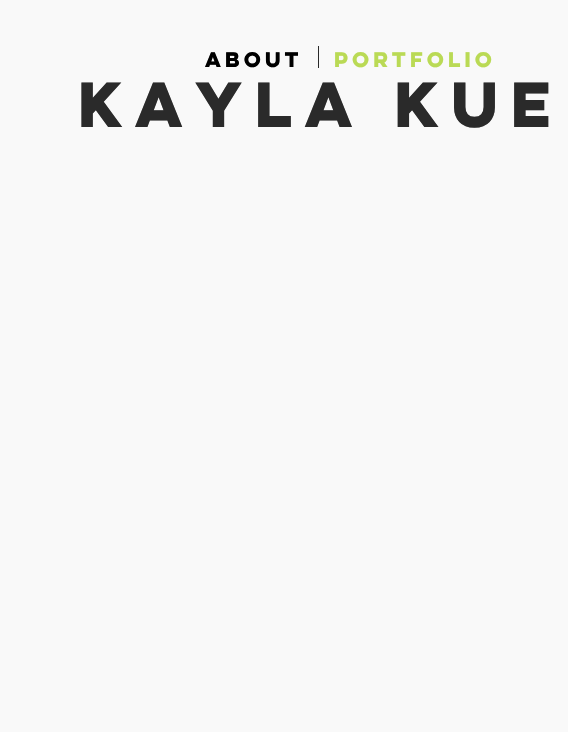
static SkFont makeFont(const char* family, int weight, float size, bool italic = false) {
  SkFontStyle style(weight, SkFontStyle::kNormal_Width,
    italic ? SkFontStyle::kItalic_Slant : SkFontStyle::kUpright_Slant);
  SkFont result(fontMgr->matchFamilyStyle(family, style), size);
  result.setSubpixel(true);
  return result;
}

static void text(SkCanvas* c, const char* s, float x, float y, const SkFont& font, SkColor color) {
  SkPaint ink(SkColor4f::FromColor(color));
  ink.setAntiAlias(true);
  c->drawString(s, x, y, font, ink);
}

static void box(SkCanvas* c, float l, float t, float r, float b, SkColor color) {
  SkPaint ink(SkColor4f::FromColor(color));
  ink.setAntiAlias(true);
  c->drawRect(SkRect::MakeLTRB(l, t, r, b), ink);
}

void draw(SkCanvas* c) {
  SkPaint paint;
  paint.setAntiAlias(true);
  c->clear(0xfff9f9f9);
  SkFont face1 = makeFont("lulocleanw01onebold", 700, 19);
  text(c, "About", 205, 67, face1, 0xff000000);
  box(c, 318, 46, 319, 68, 0xff2a2a2a);
  text(c, "Portfolio", 334, 67, face1, 0xffbada55);
  SkFont face2 = makeFont("lulocleanw01onebold", 700, 57);
  text(c, "KAYLA KUE", 78, 127, face2, 0xff2a2a2a);
}
